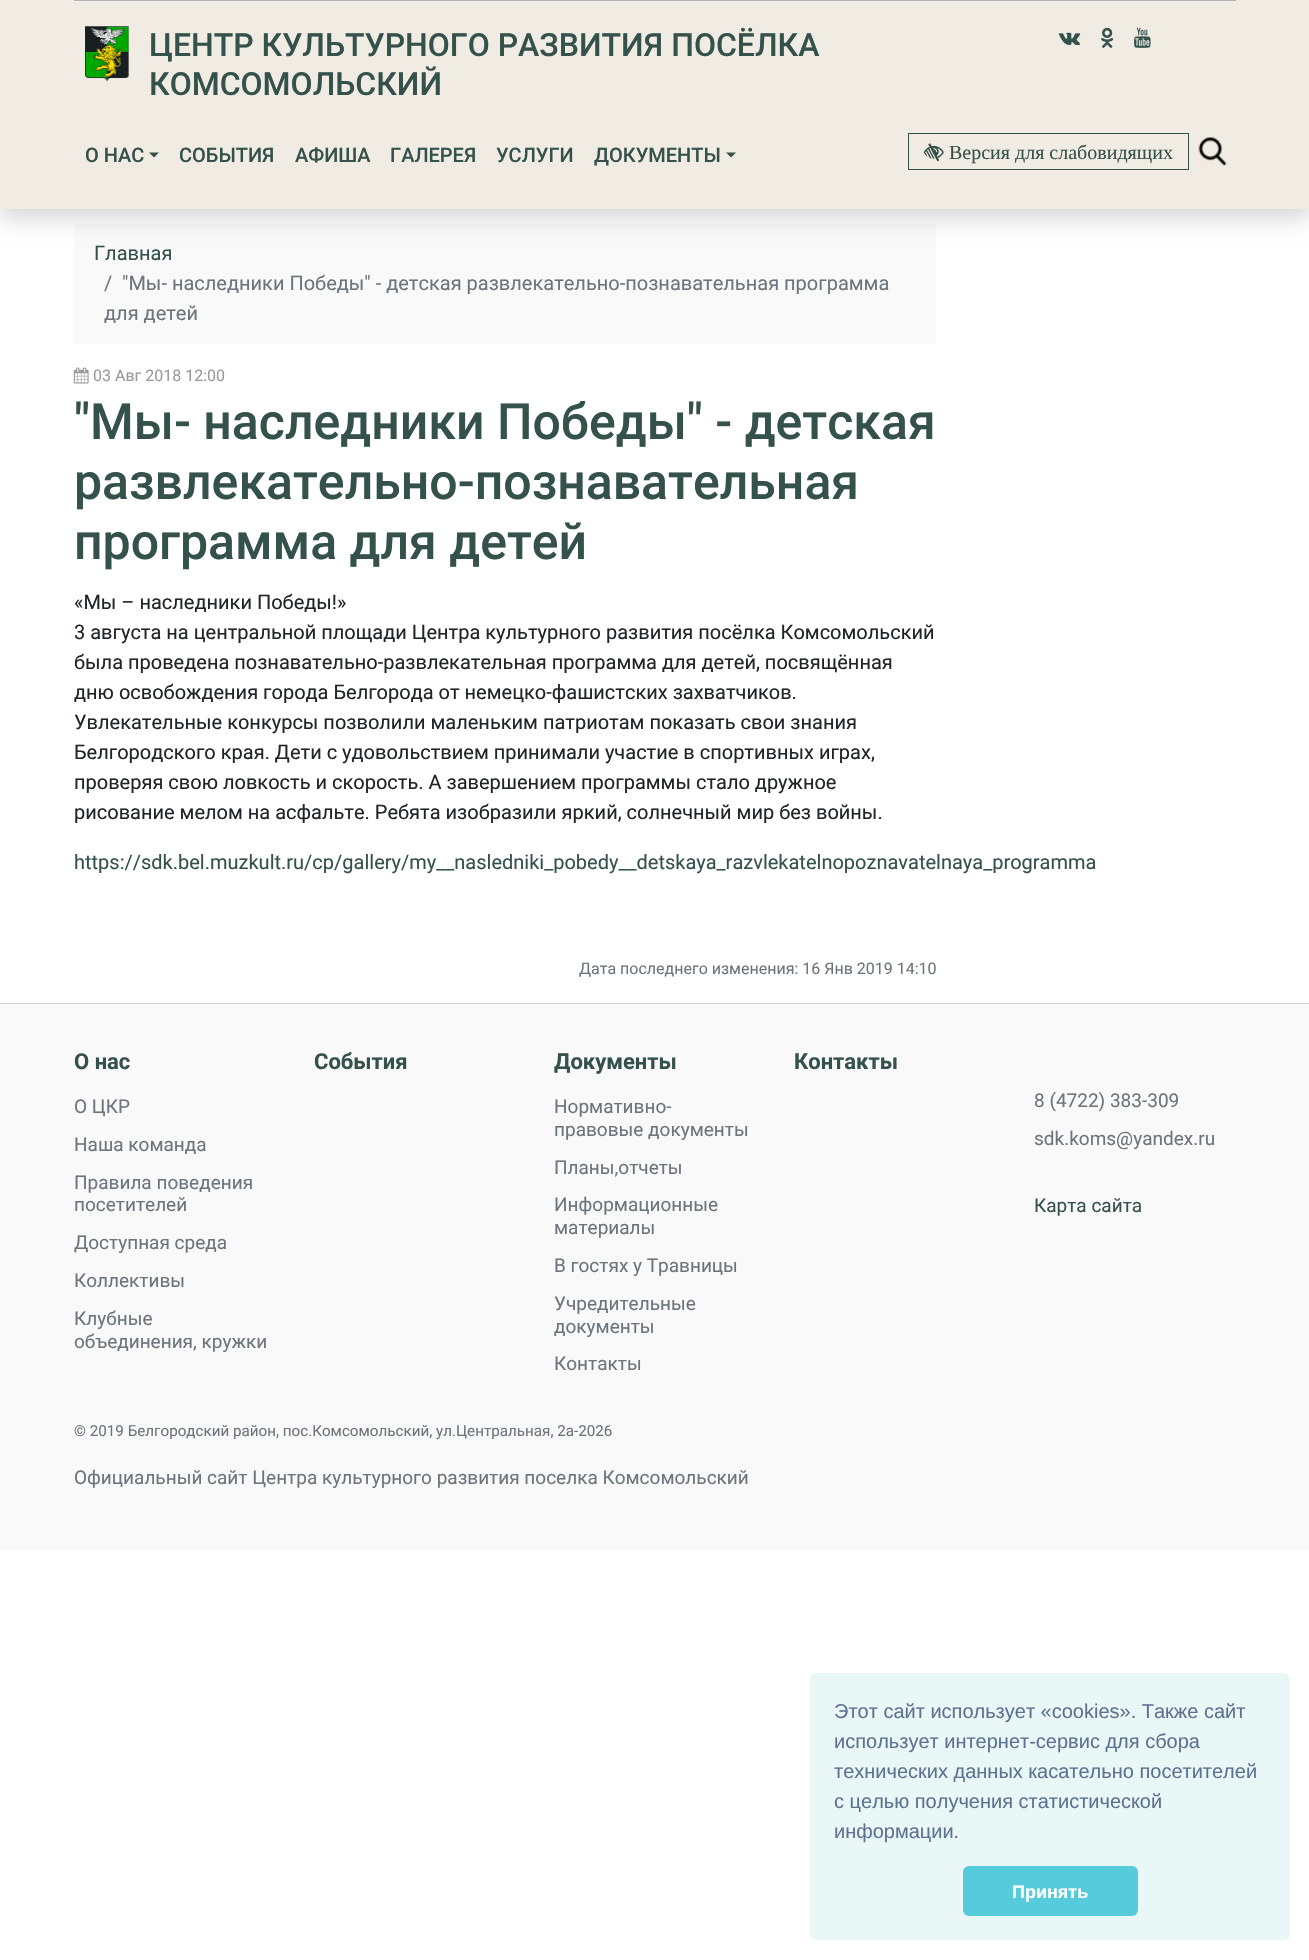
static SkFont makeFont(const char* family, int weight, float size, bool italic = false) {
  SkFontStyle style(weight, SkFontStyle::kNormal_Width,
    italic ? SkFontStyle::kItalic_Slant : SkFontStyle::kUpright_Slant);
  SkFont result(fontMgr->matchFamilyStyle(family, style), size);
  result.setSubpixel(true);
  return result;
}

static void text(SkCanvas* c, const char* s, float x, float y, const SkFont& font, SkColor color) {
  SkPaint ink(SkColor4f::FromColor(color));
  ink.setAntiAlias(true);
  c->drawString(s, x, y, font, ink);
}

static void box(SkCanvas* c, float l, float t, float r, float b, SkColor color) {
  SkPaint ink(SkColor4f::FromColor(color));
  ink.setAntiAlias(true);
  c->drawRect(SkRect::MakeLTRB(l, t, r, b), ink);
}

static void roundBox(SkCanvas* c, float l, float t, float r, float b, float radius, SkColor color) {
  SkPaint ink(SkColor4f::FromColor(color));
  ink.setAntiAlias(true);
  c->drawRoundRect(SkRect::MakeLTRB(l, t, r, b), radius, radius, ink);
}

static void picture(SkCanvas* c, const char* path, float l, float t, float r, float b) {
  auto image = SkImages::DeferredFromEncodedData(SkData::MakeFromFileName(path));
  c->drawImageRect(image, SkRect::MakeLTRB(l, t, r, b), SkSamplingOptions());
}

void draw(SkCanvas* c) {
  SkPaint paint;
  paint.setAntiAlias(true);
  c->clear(0xffffffff);
  box(c, 74, 224, 936, 344, 0xfff9f9f9);
  paint.setColor(0x26000000);
  paint.setMaskFilter(SkMaskFilter::MakeBlur(kNormal_SkBlurStyle, 10));
  c->drawRect(SkRect::MakeLTRB(0, 10, 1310, 219), paint);
  paint.setMaskFilter(nullptr);
  box(c, 0, 0, 1309, 209, 0xfff1ece3);
  box(c, 74, 0, 1236, 1, 0xffb1b1b1);
  picture(c, "img_01.png", 85, 26, 129, 82);
  SkFont face1 = makeFont("Roboto", 500, 32);
  text(c, "ЦЕНТР КУЛЬТУРНОГО РАЗВИТИЯ ПОСЁЛКА", 149, 56, face1, 0xff34514c);
  text(c, "КОМСОМОЛЬСКИЙ", 149, 95, face1, 0xff34514c);
  picture(c, "img_02.png", 1058, 32, 1081, 45);
  picture(c, "img_03.png", 1101, 27, 1114, 48);
  picture(c, "img_04.png", 1134, 27, 1151, 48);
  SkFont face2 = makeFont("Roboto", 500, 20);
  text(c, "О НАС", 85, 162, face2, 0xff34514c);
  paint.setColor(0xff34514c);
  c->drawPath(SkPathBuilder().moveTo(149, 152.5f).lineTo(159, 152.5f).lineTo(154, 157.5f).close().detach(), paint);
  text(c, "СОБЫТИЯ", 179, 162, face2, 0xff34514c);
  text(c, "АФИША", 295, 162, face2, 0xff34514c);
  text(c, "ГАЛЕРЕЯ", 390, 162, face2, 0xff34514c);
  text(c, "УСЛУГИ", 496, 162, face2, 0xff34514c);
  text(c, "ДОКУМЕНТЫ", 594, 162, face2, 0xff34514c);
  c->drawPath(SkPathBuilder().moveTo(726, 152.5f).lineTo(736, 152.5f).lineTo(731, 157.5f).close().detach(), paint);
  paint.setStyle(SkPaint::kStroke_Style);
  paint.setStrokeWidth(1);
  c->drawRect(SkRect::MakeLTRB(908.5f, 133.5f, 1188.5f, 169.5f), paint);
  picture(c, "img_05.png", 923, 143, 944, 162);
  SkFont face3 = makeFont("Liberation Serif", 400, 20);
  text(c, "Версия для слабовидящих", 949, 159, face3, 0xff34514c);
  picture(c, "img_06.png", 1198, 137, 1227, 166);
  SkFont face4 = makeFont("Roboto", 400, 20);
  text(c, "Главная", 94, 260, face4, 0xff34514c);
  text(c, "/", 104, 290, face4, 0xff6c757d);
  text(c, "\"Мы- наследники Победы\" - детская развлекательно-познавательная программа", 122, 290, face4, 0xff6c757d);
  text(c, "для детей", 104, 320, face4, 0xff6c757d);
  picture(c, "img_07.png", 73, 367, 89, 384);
  SkFont face5 = makeFont("Roboto", 400, 16);
  text(c, "03 Авг 2018 12:00", 93, 381, face5, 0xff999999);
  SkFont face6 = makeFont("Roboto", 500, 50);
  text(c, "\"Мы- наследники Победы\" - детская", 74, 439, face6, 0xff34514c);
  text(c, "развлекательно-познавательная", 74, 499, face6, 0xff34514c);
  text(c, "программа для детей", 74, 559, face6, 0xff34514c);
  text(c, "«Мы – наследники Победы!»", 74, 609, face4, 0xff212529);
  text(c, "3 августа на центральной площади Центра культурного развития посёлка Комсомольский", 74, 639, face4, 0xff212529);
  text(c, "была проведена познавательно-развлекательная программа для детей, посвящённая", 74, 669, face4, 0xff212529);
  text(c, "дню освобождения города Белгорода от немецко-фашистских захватчиков.", 74, 699, face4, 0xff212529);
  text(c, "Увлекательные конкурсы позволили маленьким патриотам показать свои знания", 74, 729, face4, 0xff212529);
  text(c, "Белгородского края. Дети с удовольствием принимали участие в спортивных играх,", 74, 759, face4, 0xff212529);
  text(c, "проверяя свою ловкость и скорость. А завершением программы стало дружное", 74, 789, face4, 0xff212529);
  text(c, "рисование мелом на асфальте. Ребята изобразили яркий, солнечный мир без войны.", 74, 819, face4, 0xff212529);
  text(c, "https://sdk.bel.muzkult.ru/cp/gallery/my__nasledniki_pobedy__detskaya_razvlekatelnopoznavatelnaya_programma", 74, 869, face4, 0xff34514c);
  text(c, "Дата последнего изменения: 16 Янв 2019 14:10", 579, 974, face5, 0xff6c757d);
  box(c, 0, 1004, 1309, 1550, 0xfff9f9f9);
  box(c, 0, 1003, 1309, 1004, 0xffced4da);
  SkFont face7 = makeFont("Roboto", 700, 22);
  text(c, "О нас", 74, 1069, face7, 0xff34514c);
  SkFont face8 = makeFont("Roboto", 400, 19);
  text(c, "О ЦКР", 74, 1113, face8, 0xff6c757d);
  text(c, "Наша команда", 74, 1151, face8, 0xff6c757d);
  text(c, "Правила поведения", 74, 1189, face8, 0xff6c757d);
  text(c, "посетителей", 74, 1211, face8, 0xff6c757d);
  text(c, "Доступная среда", 74, 1249, face8, 0xff6c757d);
  text(c, "Коллективы", 74, 1287, face8, 0xff6c757d);
  text(c, "Клубные", 74, 1325, face8, 0xff6c757d);
  text(c, "объединения, кружки", 74, 1348, face8, 0xff6c757d);
  text(c, "События", 314, 1069, face7, 0xff34514c);
  text(c, "Документы", 554, 1069, face7, 0xff34514c);
  text(c, "Нормативно-", 554, 1113, face8, 0xff6c757d);
  text(c, "правовые документы", 554, 1136, face8, 0xff6c757d);
  text(c, "Планы,отчеты", 554, 1174, face8, 0xff6c757d);
  text(c, "Информационные", 554, 1211, face8, 0xff6c757d);
  text(c, "материалы", 554, 1234, face8, 0xff6c757d);
  text(c, "В гостях у Травницы", 554, 1272, face8, 0xff6c757d);
  text(c, "Учредительные", 554, 1310, face8, 0xff6c757d);
  text(c, "документы", 554, 1333, face8, 0xff6c757d);
  text(c, "Контакты", 554, 1370, face8, 0xff6c757d);
  text(c, "Контакты", 794, 1069, face7, 0xff34514c);
  text(c, "8 (4722) 383-309", 1034, 1107, face8, 0xff6c757d);
  text(c, "sdk.koms@yandex.ru", 1034, 1145, face8, 0xff6c757d);
  text(c, "Карта сайта", 1034, 1212, face8, 0xff34514c);
  SkFont face9 = makeFont("Roboto", 400, 15.2f);
  text(c, "© 2019 Белгородский район, пос.Комсомольский, ул.Центральная, 2а-2026", 74, 1436, face9, 0xff6c757d);
  text(c, "Официальный сайт Центра культурного развития поселка Комсомольский", 74, 1484, face8, 0xff6c757d);
  roundBox(c, 810, 1673, 1290, 1940, 6, 0xffeaf7f7);
  SkFont face10 = makeFont("Liberation Sans", 400, 20);
  text(c, "Этот сайт использует «cookies». Также сайт", 834, 1718, face10, 0xff5c7291);
  text(c, "использует интернет-сервис для сбора", 834, 1748, face10, 0xff5c7291);
  text(c, "технических данных касательно посетителей", 834, 1778, face10, 0xff5c7291);
  text(c, "с целью получения статистической", 834, 1808, face10, 0xff5c7291);
  text(c, "информации.", 834, 1838, face10, 0xff5c7291);
  roundBox(c, 963, 1866, 1138, 1916, 6, 0xff56cbdb);
  SkFont face11 = makeFont("Liberation Sans", 700, 18);
  text(c, "Принять", 1012, 1898, face11, 0xffffffff);
}
